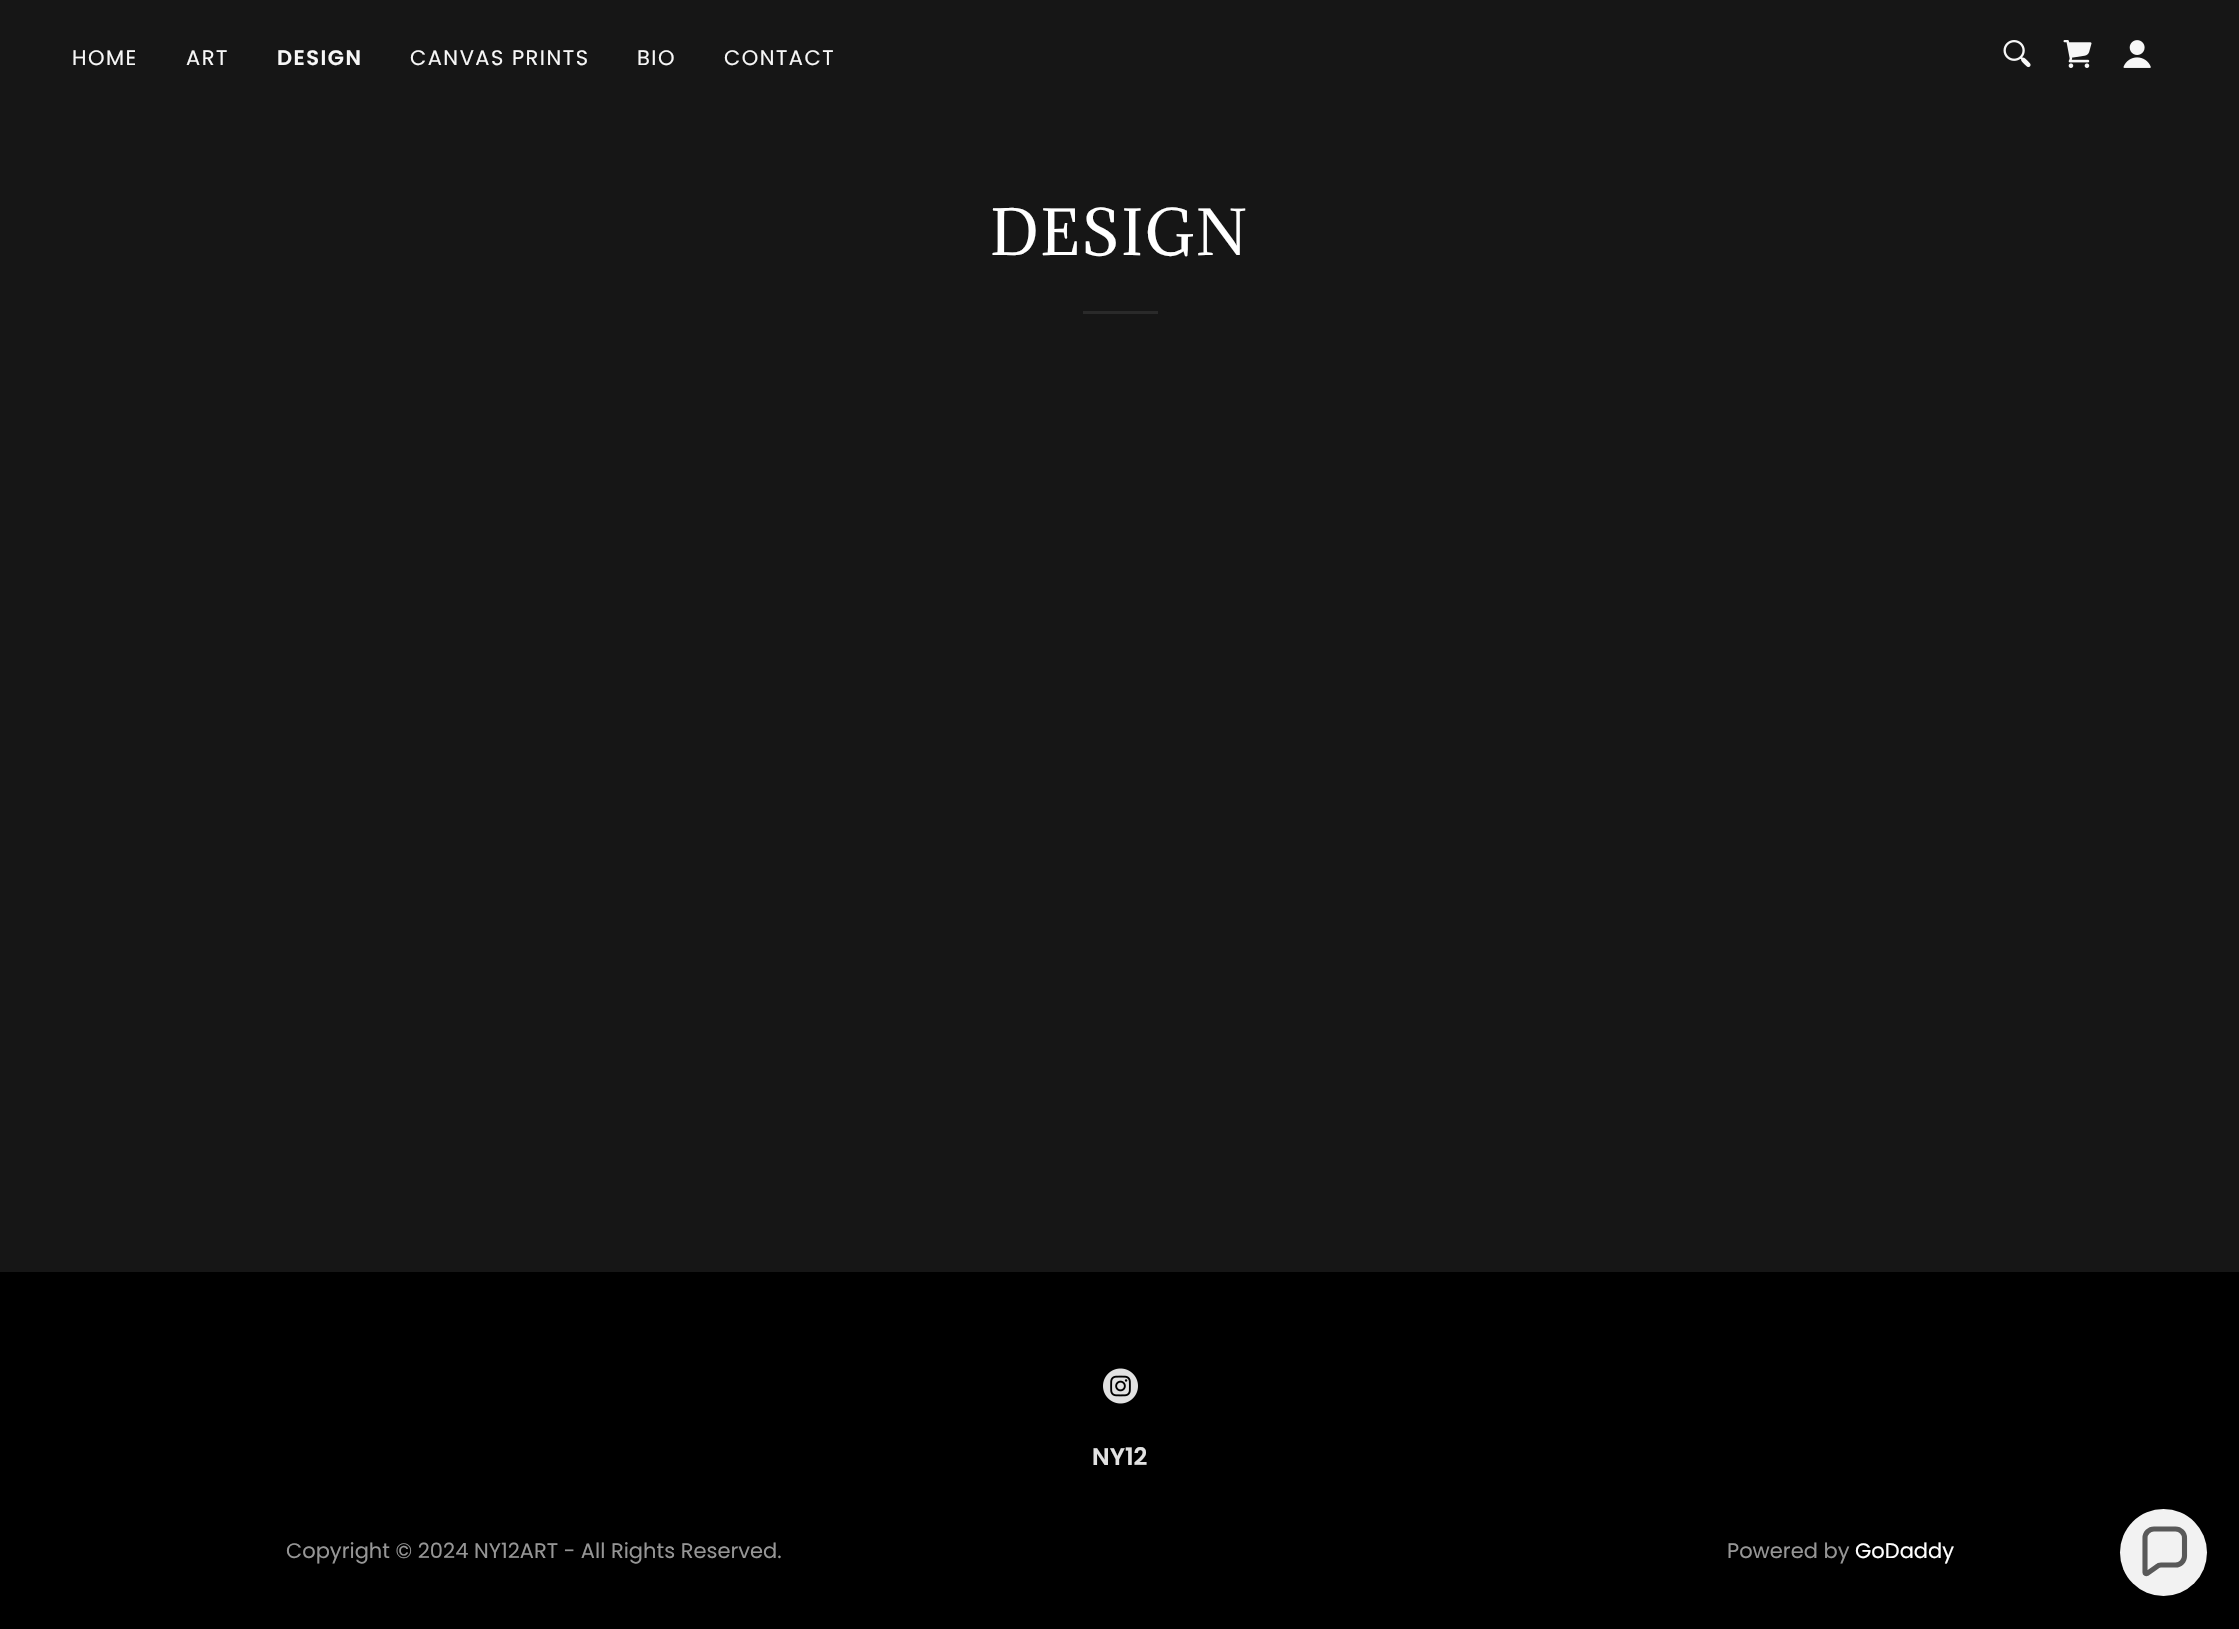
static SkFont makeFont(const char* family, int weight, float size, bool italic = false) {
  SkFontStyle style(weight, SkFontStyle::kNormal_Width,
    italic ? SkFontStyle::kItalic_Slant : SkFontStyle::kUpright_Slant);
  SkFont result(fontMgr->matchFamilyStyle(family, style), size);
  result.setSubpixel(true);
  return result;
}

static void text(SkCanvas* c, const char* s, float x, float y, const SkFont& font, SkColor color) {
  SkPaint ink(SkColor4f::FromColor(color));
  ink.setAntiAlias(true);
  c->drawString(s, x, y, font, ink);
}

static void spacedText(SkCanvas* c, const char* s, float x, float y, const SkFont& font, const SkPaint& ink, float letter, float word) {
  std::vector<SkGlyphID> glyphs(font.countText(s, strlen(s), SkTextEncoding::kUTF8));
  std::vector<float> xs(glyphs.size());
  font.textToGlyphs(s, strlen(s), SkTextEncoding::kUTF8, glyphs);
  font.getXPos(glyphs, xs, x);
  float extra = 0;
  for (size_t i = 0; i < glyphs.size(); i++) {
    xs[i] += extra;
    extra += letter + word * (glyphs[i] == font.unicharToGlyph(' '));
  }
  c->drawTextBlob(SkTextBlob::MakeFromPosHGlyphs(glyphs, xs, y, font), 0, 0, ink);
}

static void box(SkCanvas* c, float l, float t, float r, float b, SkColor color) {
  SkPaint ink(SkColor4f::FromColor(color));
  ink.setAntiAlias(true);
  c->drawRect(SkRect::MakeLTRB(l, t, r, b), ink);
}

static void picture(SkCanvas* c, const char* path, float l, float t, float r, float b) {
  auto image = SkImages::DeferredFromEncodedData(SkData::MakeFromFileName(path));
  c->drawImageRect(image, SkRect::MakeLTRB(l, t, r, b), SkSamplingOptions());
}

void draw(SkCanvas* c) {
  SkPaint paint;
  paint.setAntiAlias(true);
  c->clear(0xff000000);
  box(c, 0, 0, 2239, 1272, 0xff161616);
  SkFont face1 = makeFont("Poppins", 400, 21);
  paint.setColor(0xfff7f7f7);
  spacedText(c, "HOME", 72, 65, face1, paint, 1.5f, 0);
  spacedText(c, "ART", 186, 65, face1, paint, 1.5f, 0);
  SkFont face2 = makeFont("Poppins", 600, 21);
  spacedText(c, "DESIGN", 277, 65, face2, paint, 1.5f, 0);
  spacedText(c, "CANVAS PRINTS", 410, 65, face1, paint, 1.5f, 0);
  spacedText(c, "BIO", 637, 65, face1, paint, 1.5f, 0);
  spacedText(c, "CONTACT", 724, 65, face1, paint, 1.5f, 0);
  picture(c, "img_01.png", 2003, 40, 2031, 68);
  picture(c, "img_02.png", 2063, 40, 2092, 68);
  picture(c, "img_03.png", 2123, 40, 2151, 68);
  SkFont face3 = makeFont("Adamina", 400, 58.5f);
  paint.setColor(0xffffffff);
  spacedText(c, "DESIGN", 990, 255, face3, paint, 1.5f, 0);
  box(c, 1083, 311, 1158, 314, 0xff2a2a2a);
  picture(c, "img_04.png", 1103, 1368, 1138, 1404);
  SkFont face4 = makeFont("Poppins", 600, 24);
  text(c, "NY12", 1092, 1465, face4, 0xffe2e2e2);
  text(c, "Copyright © 2024 NY12ART - All Rights Reserved.", 286, 1558, face1, 0xff969696);
  text(c, "Powered by", 1727, 1558, face1, 0xff969696);
  text(c, "GoDaddy", 1855, 1558, face1, 0xffffffff);
  paint.setColor(0xfff2f2f2);
  c->drawCircle(2163.5f, 1552.5f, 43.5f, paint);
  paint.setStyle(SkPaint::kStroke_Style);
  paint.setStrokeWidth(5.1f);
  paint.setColor(0xff595959);
  c->drawPath(SkPathBuilder().moveTo(2175.5f, 1529).lineTo(2154, 1529).cubicTo(2149, 1529, 2145, 1533, 2145, 1538).lineTo(2145, 1572.5f).cubicTo(2145, 1573.5f, 2146, 1574, 2147, 1573.5f).lineTo(2157, 1566.5f).cubicTo(2158, 1565.5f, 2159.5f, 1565, 2161, 1565).lineTo(2175.5f, 1565).cubicTo(2180.5f, 1565, 2184.5f, 1561, 2184.5f, 1556).lineTo(2184.5f, 1538).cubicTo(2184.5f, 1533, 2180.5f, 1529, 2175.5f, 1529).close().detach(), paint);
}
